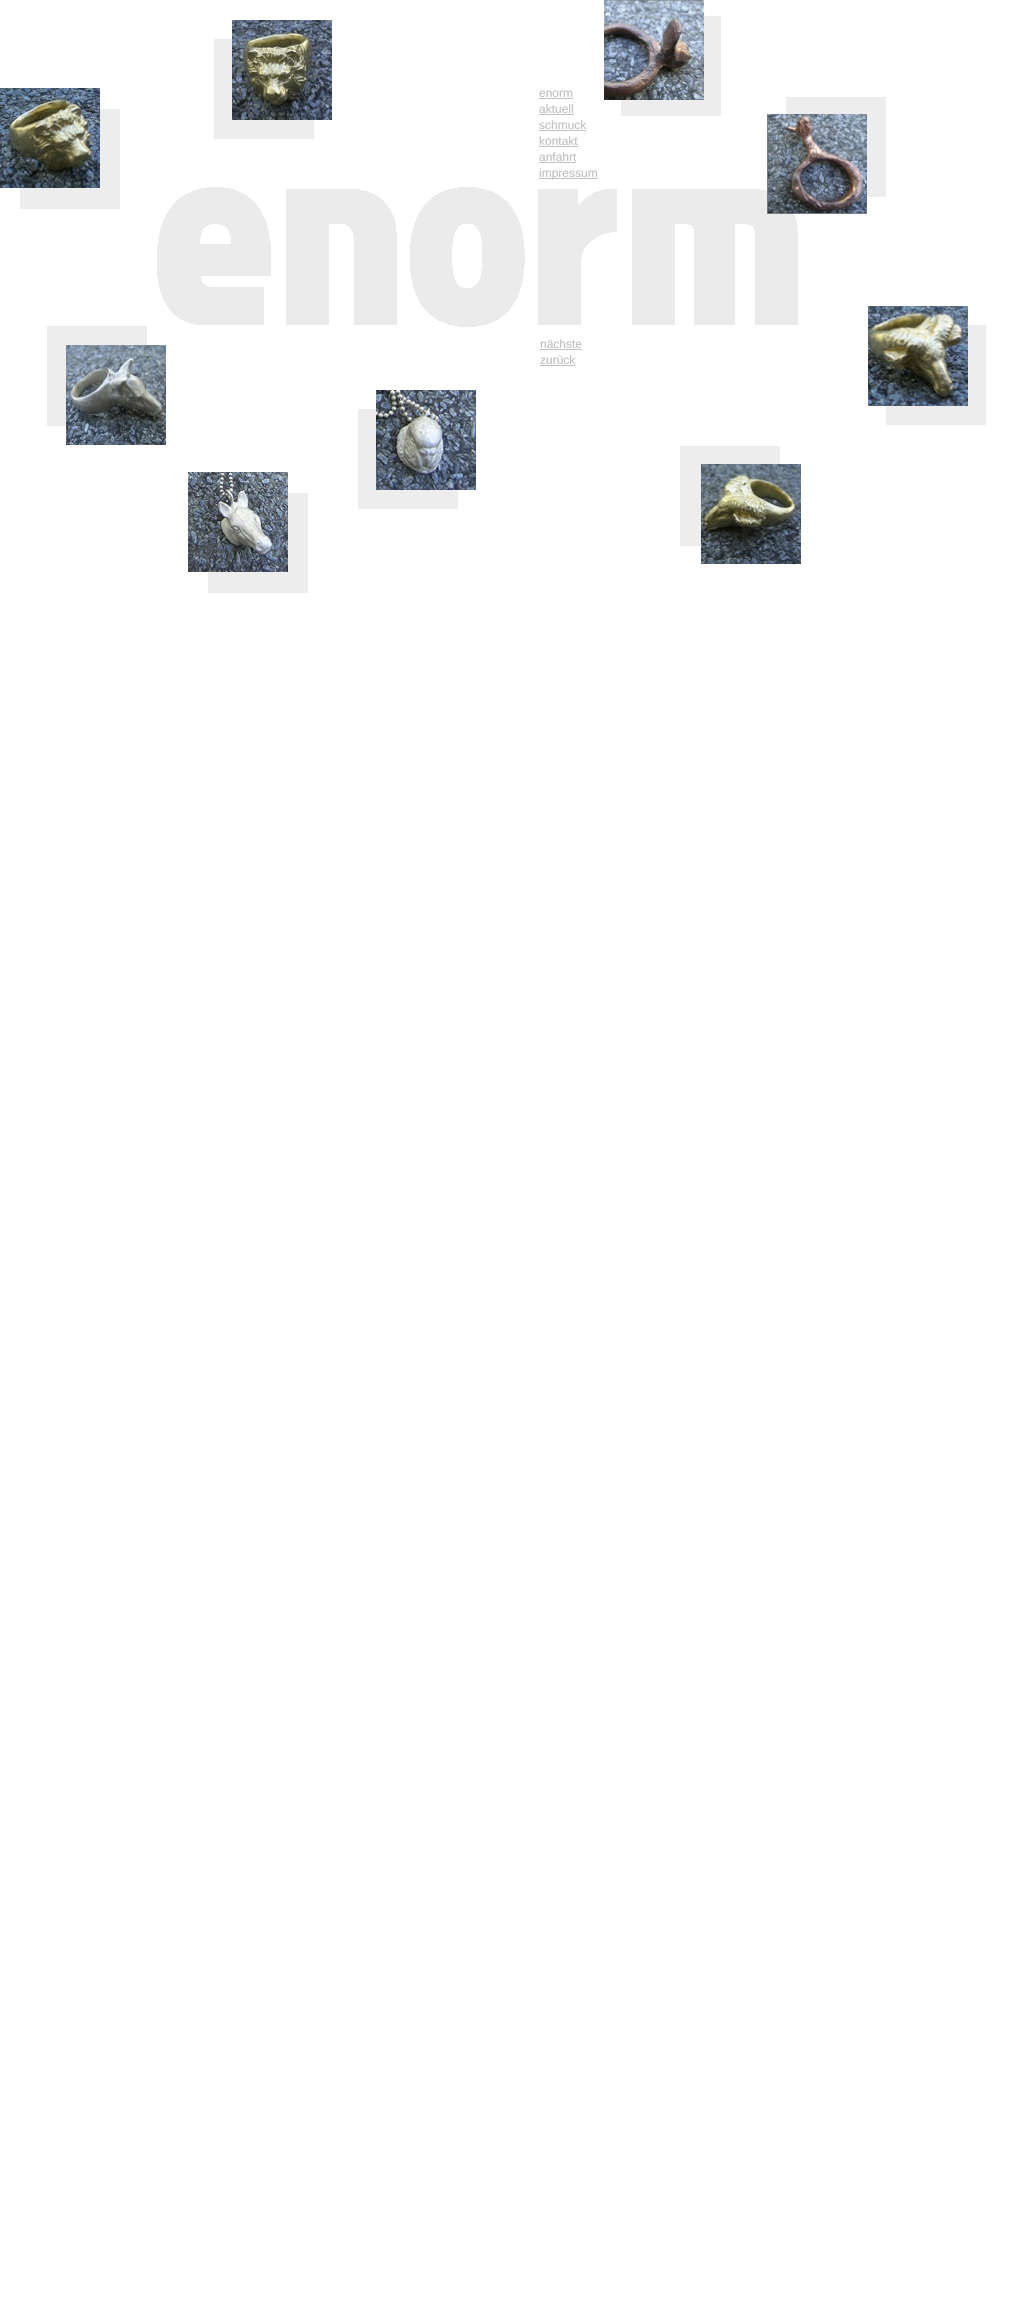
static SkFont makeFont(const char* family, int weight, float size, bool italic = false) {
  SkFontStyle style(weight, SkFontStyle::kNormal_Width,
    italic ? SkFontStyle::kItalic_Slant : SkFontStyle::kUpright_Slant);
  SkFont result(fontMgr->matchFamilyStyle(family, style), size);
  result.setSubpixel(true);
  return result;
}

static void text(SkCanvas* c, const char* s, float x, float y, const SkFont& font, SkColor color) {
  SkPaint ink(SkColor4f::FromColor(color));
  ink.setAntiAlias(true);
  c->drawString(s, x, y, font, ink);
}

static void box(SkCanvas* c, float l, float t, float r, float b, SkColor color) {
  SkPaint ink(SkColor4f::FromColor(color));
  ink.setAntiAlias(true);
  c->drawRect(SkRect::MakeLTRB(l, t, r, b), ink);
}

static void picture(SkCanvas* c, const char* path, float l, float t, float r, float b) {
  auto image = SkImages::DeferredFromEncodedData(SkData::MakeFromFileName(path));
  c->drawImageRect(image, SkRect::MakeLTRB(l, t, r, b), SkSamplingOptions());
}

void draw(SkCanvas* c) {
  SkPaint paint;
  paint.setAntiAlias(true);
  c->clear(0xffffffff);
  box(c, 621, 16, 721, 116, 0xffededed);
  picture(c, "img_01.png", 604, 0, 704, 100);
  box(c, 214, 39, 314, 139, 0xffededed);
  picture(c, "img_02.png", 232, 20, 332, 120);
  box(c, 20, 109, 120, 209, 0xffededed);
  picture(c, "img_03.png", 0, 88, 100, 188);
  SkFont face1 = makeFont("Liberation Sans", 400, 12);
  text(c, "enorm", 539, 97, face1, 0xffc0c0c0);
  box(c, 539, 98, 573, 99, 0xffc0c0c0);
  text(c, "aktuell", 539, 113, face1, 0xffc0c0c0);
  box(c, 539, 114, 574, 115, 0xffc0c0c0);
  text(c, "schmuck", 539, 129, face1, 0xffc0c0c0);
  box(c, 539, 130, 586, 131, 0xffc0c0c0);
  text(c, "kontakt", 539, 145, face1, 0xffc0c0c0);
  box(c, 539, 146, 578, 147, 0xffc0c0c0);
  text(c, "anfahrt", 539, 161, face1, 0xffc0c0c0);
  box(c, 539, 162, 576, 163, 0xffc0c0c0);
  box(c, 539, 178, 598, 179, 0xffc0c0c0);
  text(c, "impressum", 539, 177, face1, 0xffc0c0c0);
  box(c, 47, 326, 147, 426, 0xffededed);
  text(c, "nächste", 540, 348, face1, 0xffc0c0c0);
  box(c, 540, 349, 582, 350, 0xffc0c0c0);
  text(c, "zurück", 540, 364, face1, 0xffc0c0c0);
  box(c, 540, 365, 575, 366, 0xffc0c0c0);
  box(c, 886, 325, 986, 425, 0xffededed);
  box(c, 208, 493, 308, 593, 0xffededed);
  box(c, 358, 409, 458, 509, 0xffededed);
  box(c, 680, 446, 780, 546, 0xffededed);
  picture(c, "img_05.png", 157, 187, 798, 327);
  box(c, 786, 97, 886, 197, 0xffededed);
  picture(c, "img_04.png", 767, 114, 867, 214);
  picture(c, "img_06.png", 66, 345, 166, 445);
  picture(c, "img_07.png", 376, 390, 476, 490);
  picture(c, "img_08.png", 868, 306, 968, 406);
  picture(c, "img_09.png", 188, 472, 288, 572);
  picture(c, "img_10.png", 701, 464, 801, 564);
}
